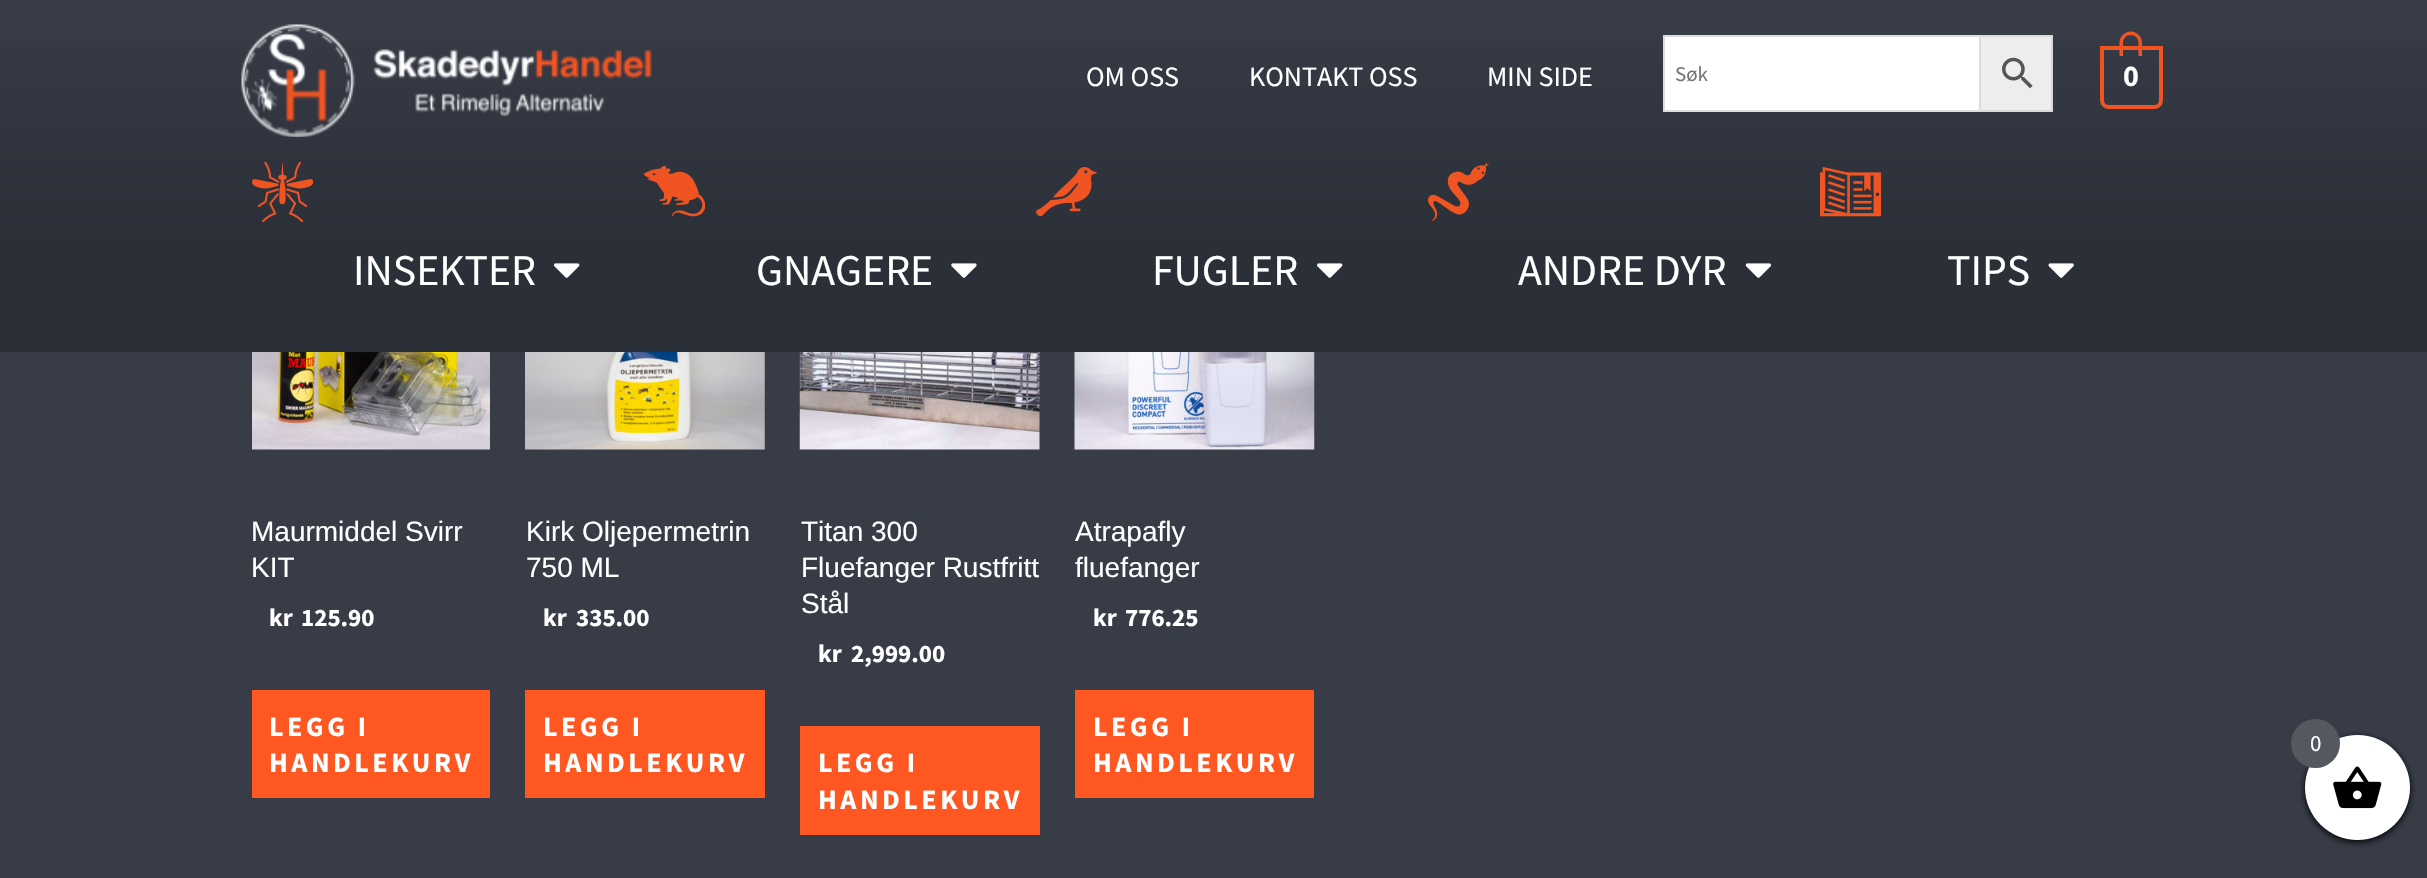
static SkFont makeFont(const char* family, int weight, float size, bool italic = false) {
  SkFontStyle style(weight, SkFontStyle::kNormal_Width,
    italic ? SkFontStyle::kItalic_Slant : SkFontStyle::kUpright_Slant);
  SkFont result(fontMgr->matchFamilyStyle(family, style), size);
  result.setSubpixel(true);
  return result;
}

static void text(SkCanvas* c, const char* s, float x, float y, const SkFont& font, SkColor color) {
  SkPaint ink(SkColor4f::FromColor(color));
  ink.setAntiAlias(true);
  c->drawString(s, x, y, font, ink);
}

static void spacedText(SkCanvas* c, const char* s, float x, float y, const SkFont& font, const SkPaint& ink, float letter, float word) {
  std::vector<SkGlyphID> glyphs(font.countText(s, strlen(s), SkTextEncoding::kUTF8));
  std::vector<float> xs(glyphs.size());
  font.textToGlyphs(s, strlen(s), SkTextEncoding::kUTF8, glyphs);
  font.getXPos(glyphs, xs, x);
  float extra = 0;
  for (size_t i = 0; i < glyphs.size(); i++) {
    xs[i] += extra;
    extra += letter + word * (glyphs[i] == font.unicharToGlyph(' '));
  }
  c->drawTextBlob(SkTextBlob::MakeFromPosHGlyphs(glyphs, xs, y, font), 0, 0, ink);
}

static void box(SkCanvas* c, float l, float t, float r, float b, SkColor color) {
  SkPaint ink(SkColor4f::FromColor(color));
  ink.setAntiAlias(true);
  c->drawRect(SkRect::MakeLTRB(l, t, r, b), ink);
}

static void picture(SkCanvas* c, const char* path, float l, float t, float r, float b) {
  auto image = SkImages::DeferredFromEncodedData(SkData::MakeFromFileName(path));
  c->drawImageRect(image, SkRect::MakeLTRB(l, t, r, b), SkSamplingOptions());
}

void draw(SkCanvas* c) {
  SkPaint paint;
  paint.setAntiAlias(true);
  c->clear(0xff373c47);
  {
    const SkColor colors[] = {0xff373c47, 0xff2b2f38};
    const float stops[] = {0, 0.69f};
    const SkPoint ends[] = {{1214, 0}, {1214, 352}};
    paint.setShader(SkGradientShader::MakeLinear(ends, colors, stops, 2, SkTileMode::kClamp));
    paint.setAlpha(255);
  }
  c->drawRect(SkRect::MakeLTRB(0, 40, 2427, 352), paint);
  picture(c, "img_01.png", 241, 24, 652, 137);
  SkFont face1 = makeFont("Source Sans Pro", 400, 28);
  text(c, "OM OSS", 1086, 86, face1, 0xffffffff);
  text(c, "KONTAKT OSS", 1249, 86, face1, 0xffffffff);
  text(c, "MIN SIDE", 1487, 86, face1, 0xffffffff);
  paint.setShader(nullptr);
  paint.setColor(0xffededed);
  c->drawRect(SkRect::MakeLTRB(1980, 36, 2052, 111), paint);
  paint.setStyle(SkPaint::kStroke_Style);
  paint.setStrokeWidth(2);
  paint.setColor(0xffd8d8d8);
  c->drawRect(SkRect::MakeLTRB(1980, 36, 2052, 111), paint);
  paint.setStyle(SkPaint::kFill_Style);
  paint.setColor(0xffffffff);
  c->drawRect(SkRect::MakeLTRB(1664, 36, 1980, 111), paint);
  paint.setStyle(SkPaint::kStroke_Style);
  paint.setColor(0xffdddddd);
  c->drawRect(SkRect::MakeLTRB(1664, 36, 1980, 111), paint);
  SkFont face2 = makeFont("Source Sans Pro", 400, 21);
  text(c, "Søk", 1675, 81, face2, 0xff757575);
  picture(c, "img_02.png", 2002, 57, 2033, 89);
  paint.setStrokeWidth(4);
  paint.setColor(0xfff05423);
  c->drawPath(SkPathBuilder().moveTo(2102, 48).lineTo(2161, 48).lineTo(2161, 100).cubicTo(2161, 104, 2158, 107, 2154, 107).lineTo(2109, 107).cubicTo(2105, 107, 2102, 104, 2102, 100).close().detach(), paint);
  paint.setStyle(SkPaint::kFill_Style);
  c->drawPath(SkPathBuilder(SkPathFillType::kEvenOdd).moveTo(2131, 31.5f).cubicTo(2137, 31.5f, 2142, 36.5f, 2142, 43).lineTo(2142, 56).lineTo(2119.5f, 56).lineTo(2119.5f, 43).cubicTo(2119.5f, 36.5f, 2124.5f, 31.5f, 2131, 31.5f).close().moveTo(2131, 35).cubicTo(2135, 35, 2138.5f, 38.5f, 2138.5f, 43).lineTo(2138.5f, 56).lineTo(2123, 56).lineTo(2123, 43).cubicTo(2123, 38.5f, 2126.5f, 35, 2131, 35).close().detach(), paint);
  SkFont face3 = makeFont("Source Sans Pro", 700, 30);
  text(c, "0", 2123, 86, face3, 0xffffffff);
  picture(c, "img_03.png", 252, 161, 313, 222);
  picture(c, "img_04.png", 644, 166, 705, 217);
  picture(c, "img_05.png", 1036, 167, 1097, 217);
  picture(c, "img_06.png", 1428, 162, 1489, 222);
  picture(c, "img_07.png", 1820, 167, 1881, 217);
  SkFont face4 = makeFont("Source Sans Pro", 400, 43.75f);
  text(c, "INSEKTER", 353, 285, face4, 0xffffffff);
  picture(c, "img_08.png", 554, 263, 580, 278);
  text(c, "GNAGERE", 756, 285, face4, 0xffffffff);
  picture(c, "img_09.png", 951, 263, 977, 278);
  text(c, "FUGLER", 1152, 285, face4, 0xffffffff);
  picture(c, "img_08.png", 1317, 263, 1343, 278);
  text(c, "ANDRE DYR", 1518, 285, face4, 0xffffffff);
  picture(c, "img_10.png", 1745, 263, 1772, 278);
  text(c, "TIPS", 1947, 285, face4, 0xffffffff);
  picture(c, "img_11.png", 2048, 263, 2074, 278);
  picture(c, "img_12.png", 252, 352, 490, 450);
  SkFont face5 = makeFont("Liberation Sans", 400, 28);
  text(c, "Maurmiddel Svirr", 251, 541, face5, 0xffffffff);
  text(c, "KIT", 251, 577, face5, 0xffffffff);
  SkFont face6 = makeFont("Source Sans Pro", 700, 25);
  text(c, "kr", 269, 626, face6, 0xffffffff);
  text(c, "125.90", 301, 626, face6, 0xffffffff);
  box(c, 252, 690, 490, 798, 0xfffe5722);
  SkFont face7 = makeFont("Source Sans Pro", 700, 28);
  paint.setColor(0xffffffff);
  spacedText(c, "LEGG I", 269, 736, face7, paint, 3.5f, 0);
  spacedText(c, "HANDLEKURV", 269, 772, face7, paint, 3.5f, 0);
  picture(c, "img_13.png", 525, 352, 765, 450);
  text(c, "Kirk Oljepermetrin", 526, 541, face5, 0xffffffff);
  text(c, "750 ML", 526, 577, face5, 0xffffffff);
  text(c, "kr", 543, 626, face6, 0xffffffff);
  text(c, "335.00", 576, 626, face6, 0xffffffff);
  box(c, 525, 690, 765, 798, 0xfffe5722);
  spacedText(c, "LEGG I", 543, 736, face7, paint, 3.5f, 0);
  spacedText(c, "HANDLEKURV", 543, 772, face7, paint, 3.5f, 0);
  picture(c, "img_14.png", 799, 352, 1040, 450);
  text(c, "Titan 300", 801, 541, face5, 0xffffffff);
  text(c, "Fluefanger Rustfritt", 801, 577, face5, 0xffffffff);
  text(c, "Stål", 801, 613, face5, 0xffffffff);
  text(c, "kr", 818, 662, face6, 0xffffffff);
  text(c, "2,999.00", 851, 662, face6, 0xffffffff);
  box(c, 800, 726, 1040, 835, 0xfffe5722);
  spacedText(c, "LEGG I", 818, 772, face7, paint, 3.5f, 0);
  spacedText(c, "HANDLEKURV", 818, 809, face7, paint, 3.5f, 0);
  picture(c, "img_15.png", 1074, 352, 1315, 450);
  text(c, "Atrapafly", 1075, 541, face5, 0xffffffff);
  text(c, "fluefanger", 1075, 577, face5, 0xffffffff);
  text(c, "kr", 1093, 626, face6, 0xffffffff);
  text(c, "776.25", 1125, 626, face6, 0xffffffff);
  box(c, 1075, 690, 1314, 798, 0xfffe5722);
  spacedText(c, "LEGG I", 1093, 736, face7, paint, 3.5f, 0);
  spacedText(c, "HANDLEKURV", 1093, 772, face7, paint, 3.5f, 0);
  paint.setColor(0xff000000);
  paint.setMaskFilter(SkMaskFilter::MakeBlur(kNormal_SkBlurStyle, 3.5f));
  c->drawRoundRect(SkRect::MakeLTRB(2305, 737, 2410, 842), 52.5f, 52.5f, paint);
  paint.setMaskFilter(nullptr);
  paint.setColor(0xffffffff);
  c->drawCircle(2357.5f, 787.5f, 52.5f, paint);
  picture(c, "img_16.png", 2333, 766, 2382, 809);
  paint.setColor(0xff54595f);
  c->drawCircle(2315.5f, 743.5f, 24.5f, paint);
  SkFont face8 = makeFont("Source Sans Pro", 400, 23);
  text(c, "0", 2310, 751, face8, 0xffffffff);
}
